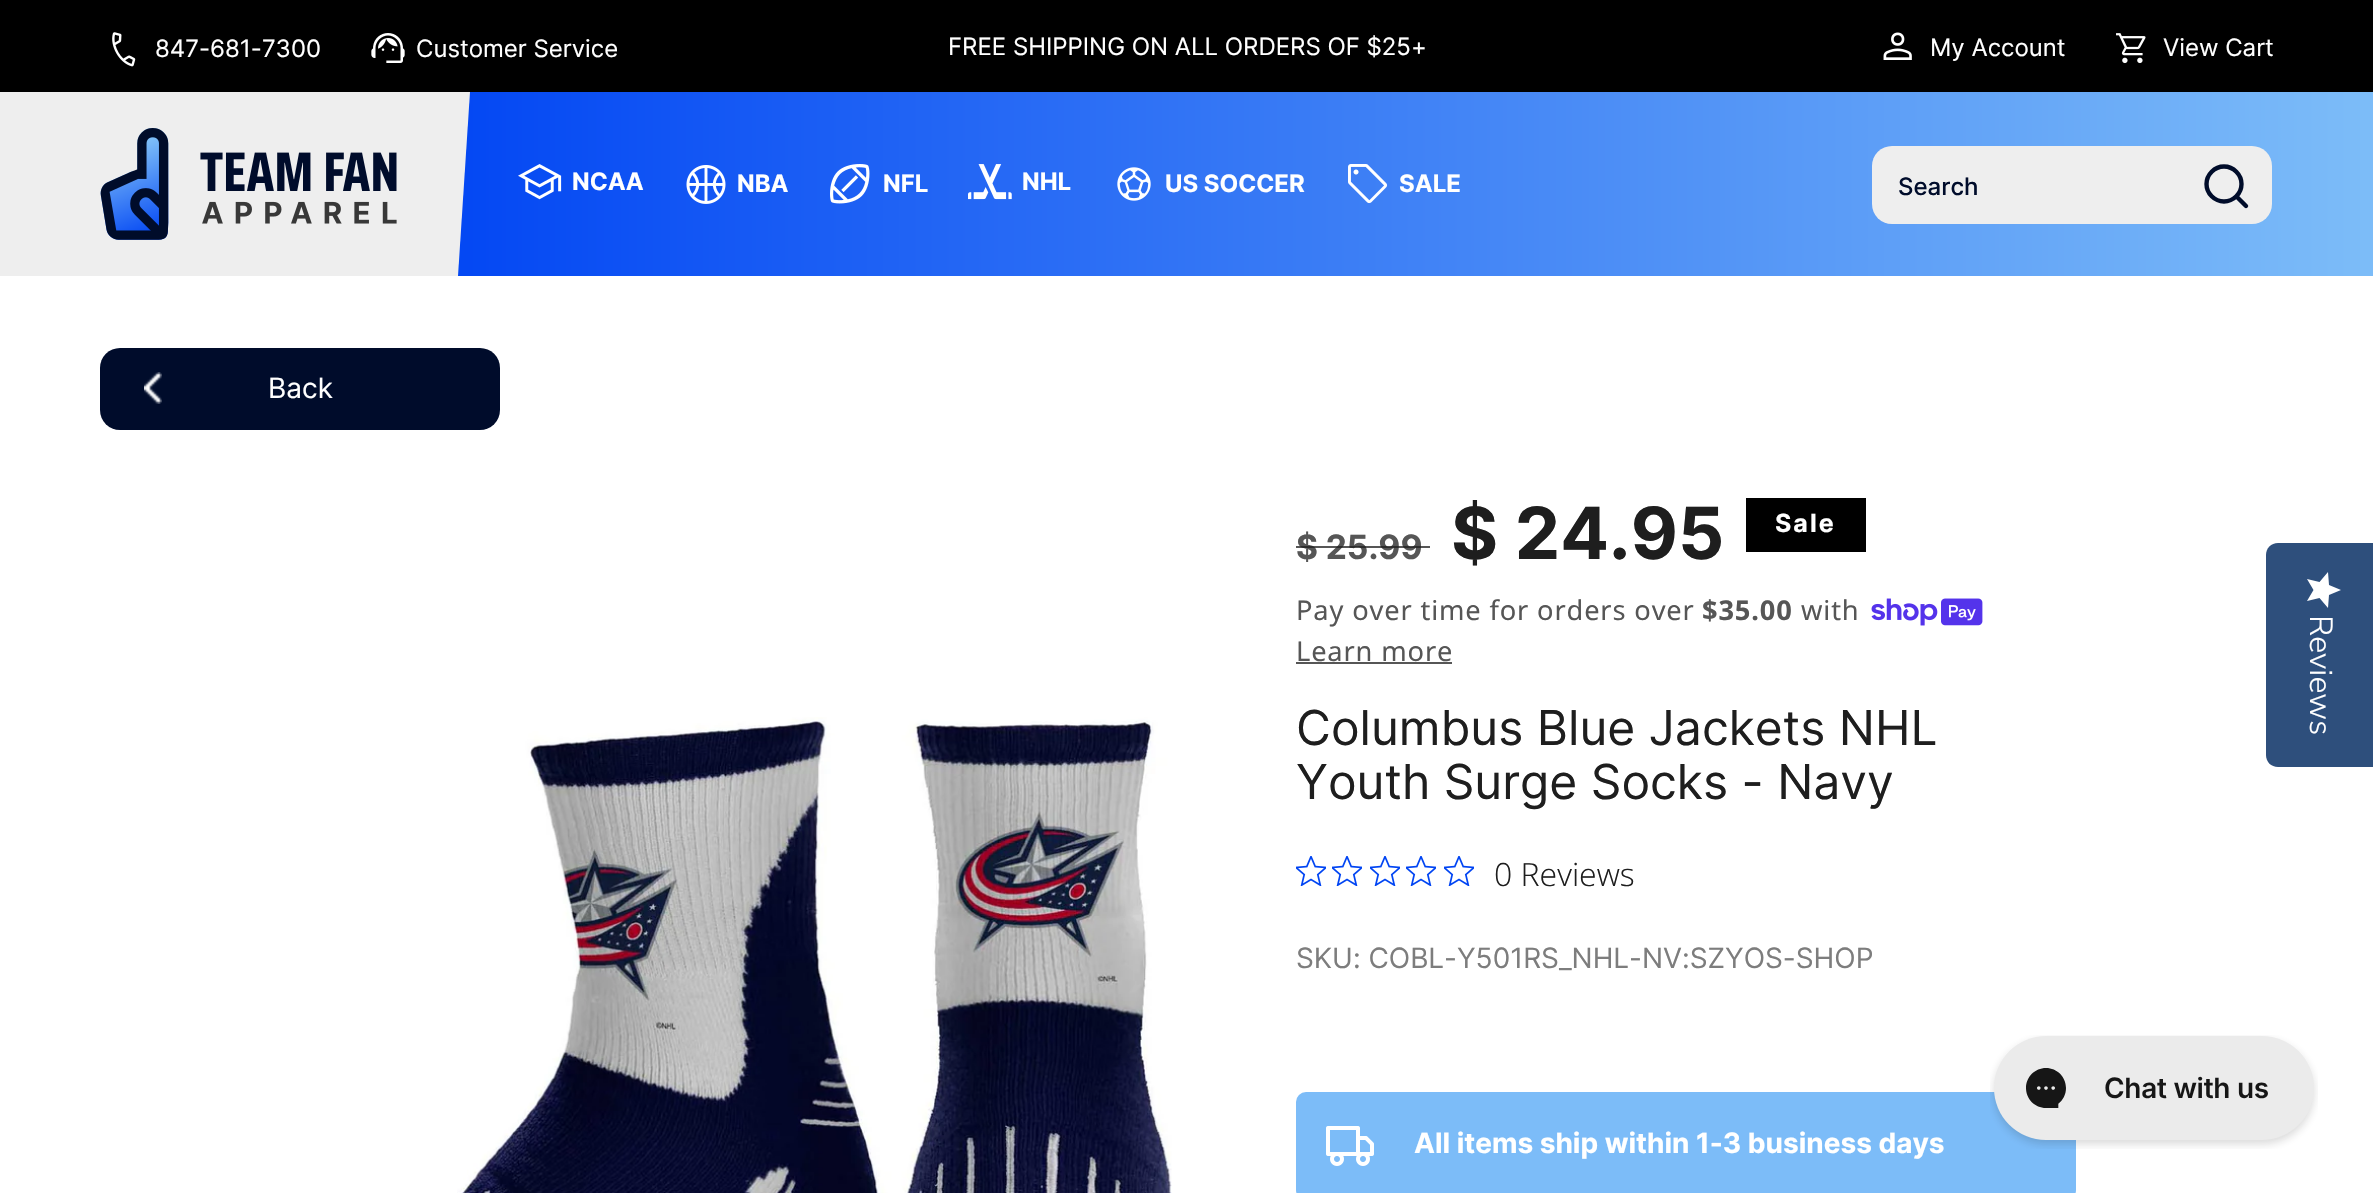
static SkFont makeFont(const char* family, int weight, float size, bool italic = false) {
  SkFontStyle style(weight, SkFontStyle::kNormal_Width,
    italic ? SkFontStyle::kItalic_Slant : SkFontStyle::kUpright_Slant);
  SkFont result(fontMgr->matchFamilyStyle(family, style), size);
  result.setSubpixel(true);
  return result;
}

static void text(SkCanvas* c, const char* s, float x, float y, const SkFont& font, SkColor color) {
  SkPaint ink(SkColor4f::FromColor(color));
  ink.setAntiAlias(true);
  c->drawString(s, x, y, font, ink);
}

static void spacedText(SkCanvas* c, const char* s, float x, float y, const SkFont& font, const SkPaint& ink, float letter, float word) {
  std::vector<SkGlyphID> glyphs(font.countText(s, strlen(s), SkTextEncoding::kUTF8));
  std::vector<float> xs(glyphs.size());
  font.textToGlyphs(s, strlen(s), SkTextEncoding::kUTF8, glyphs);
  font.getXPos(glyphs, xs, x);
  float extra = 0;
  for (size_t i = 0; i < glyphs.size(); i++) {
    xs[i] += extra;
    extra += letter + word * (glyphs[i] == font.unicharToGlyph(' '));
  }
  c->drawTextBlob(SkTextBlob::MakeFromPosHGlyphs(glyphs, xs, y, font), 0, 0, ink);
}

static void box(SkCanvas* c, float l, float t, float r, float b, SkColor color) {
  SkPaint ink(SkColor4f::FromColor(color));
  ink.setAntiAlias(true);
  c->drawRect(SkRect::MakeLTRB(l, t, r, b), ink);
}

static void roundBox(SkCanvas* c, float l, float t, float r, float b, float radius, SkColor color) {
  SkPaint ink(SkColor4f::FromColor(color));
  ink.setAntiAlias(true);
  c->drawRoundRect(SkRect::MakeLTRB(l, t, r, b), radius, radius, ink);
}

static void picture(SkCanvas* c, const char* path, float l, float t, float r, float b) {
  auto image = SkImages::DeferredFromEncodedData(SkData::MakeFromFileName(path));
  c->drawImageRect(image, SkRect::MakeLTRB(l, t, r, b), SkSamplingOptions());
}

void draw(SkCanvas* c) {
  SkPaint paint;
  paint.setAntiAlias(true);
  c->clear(0xffffffff);
  box(c, 0, 0, 2373, 92, 0xff000000);
  picture(c, "img_01.png", 112, 32, 136, 67);
  SkFont face1 = makeFont("Inter", 400, 24);
  text(c, "847-681-7300", 155, 57, face1, 0xffffffff);
  picture(c, "img_02.png", 371, 33, 405, 63);
  text(c, "Customer Service", 416, 57, face1, 0xffffffff);
  text(c, "FREE SHIPPING ON ALL ORDERS OF $25+", 948, 55, face1, 0xffffffff);
  picture(c, "img_03.png", 1883, 32, 1912, 60);
  text(c, "My Account", 1930, 56, face1, 0xffffffff);
  picture(c, "img_04.png", 2116, 33, 2146, 64);
  text(c, "View Cart", 2163, 56, face1, 0xffffffff);
  box(c, 0, 92, 470, 276, 0xffeeeeee);
  box(c, 2362, 107, 2373, 276, 0xff7cbcf8);
  {
    const SkColor colors[] = {0xff0044f3, 0xff7cbcf8};
    const float stops[] = {0, 1};
    const SkPoint ends[] = {{399, 184}, {2368, 184}};
    paint.setShader(SkGradientShader::MakeLinear(ends, colors, stops, 2, SkTileMode::kClamp));
    paint.setAlpha(255);
  }
  c->drawPath(SkPathBuilder().moveTo(470, 92).lineTo(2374, 92).lineTo(2362, 276).lineTo(458, 276).close().detach(), paint);
  picture(c, "img_05.png", 100, 128, 397, 240);
  picture(c, "img_06.png", 518, 164, 562, 200);
  SkFont face2 = makeFont("Inter", 700, 24);
  text(c, "NCAA", 572, 190, face2, 0xffffffff);
  picture(c, "img_07.png", 686, 165, 726, 204);
  text(c, "NBA", 737, 192, face2, 0xffffffff);
  picture(c, "img_08.png", 830, 164, 870, 204);
  text(c, "NFL", 883, 192, face2, 0xffffffff);
  picture(c, "img_09.png", 968, 164, 1012, 200);
  text(c, "NHL", 1022, 190, face2, 0xffffffff);
  picture(c, "img_10.png", 1117, 167, 1151, 201);
  text(c, "US SOCCER", 1165, 192, face2, 0xffffffff);
  picture(c, "img_11.png", 1348, 164, 1388, 204);
  text(c, "SALE", 1399, 192, face2, 0xffffffff);
  roundBox(c, 1872, 146, 2272, 224, 20, 0xffeeeeee);
  SkFont face3 = makeFont("Inter", 500, 24);
  text(c, "Search", 1898, 195, face3, 0xff000c2b);
  paint.setStyle(SkPaint::kStroke_Style);
  paint.setStrokeWidth(4.4f);
  paint.setStrokeCap(SkPaint::kRound_Cap);
  paint.setStrokeJoin(SkPaint::kRound_Join);
  paint.setShader(nullptr);
  paint.setColor(0xff000c2a);
  c->drawPath(SkPathBuilder().moveTo(2224, 201.5f).cubicTo(2233.5f, 201.5f, 2241.5f, 193.5f, 2241.5f, 184).cubicTo(2241.5f, 174.5f, 2233.5f, 166.5f, 2224, 166.5f).cubicTo(2214.5f, 166.5f, 2206.5f, 174.5f, 2206.5f, 184).cubicTo(2206.5f, 193.5f, 2214.5f, 201.5f, 2224, 201.5f).close().moveTo(2246, 206).lineTo(2236.5f, 196.5f).detach(), paint);
  roundBox(c, 100, 348, 500, 430, 20, 0xff000c2b);
  picture(c, "img_12.png", 144, 372, 162, 404);
  SkFont face4 = makeFont("Inter", 400, 28);
  text(c, "Back", 268, 398, face4, 0xffffffff);
  picture(c, "img_13.png", 457, 717, 1172, 1193);
  SkFont face5 = makeFont("Inter", 700, 33.5f);
  text(c, "$ 25.99", 1296, 559, face5, 0xff565656);
  box(c, 1296, 546, 1430, 548, 0xbf1e1e1e);
  SkFont face6 = makeFont("Inter", 700, 72);
  text(c, "$ 24.95", 1451, 559, face6, 0xff1e1e1e);
  box(c, 1746, 498, 1866, 552, 0xff000000);
  SkFont face7 = makeFont("Inter", 700, 25);
  paint.setStyle(SkPaint::kFill_Style);
  paint.setColor(0xffffffff);
  spacedText(c, "Sale", 1775, 532, face7, paint, 2, 0);
  SkFont face8 = makeFont("Noto Sans", 400, 27.25f);
  paint.setColor(0xff565656);
  spacedText(c, "Pay over time for orders over", 1296, 620, face8, paint, 0.85f, 0);
  SkFont face9 = makeFont("Noto Sans", 700, 27.25f);
  spacedText(c, "$35.00", 1702, 620, face9, paint, 0.85f, 0);
  spacedText(c, "with", 1801, 620, face8, paint, 0.85f, 0);
  picture(c, "img_14.png", 1871, 598, 1983, 626);
  spacedText(c, "Learn more", 1296, 661, face8, paint, 0.85f, 0);
  box(c, 1296, 662, 1452, 664, 0xff565656);
  SkFont face10 = makeFont("Inter", 400, 48);
  text(c, "Columbus Blue Jackets NHL", 1296, 745, face10, 0xff1e1e1e);
  text(c, "Youth Surge Socks - Navy", 1296, 799, face10, 0xff1e1e1e);
  picture(c, "img_15.png", 1296, 856, 1326, 886);
  picture(c, "img_15.png", 1332, 856, 1362, 886);
  picture(c, "img_15.png", 1370, 856, 1400, 886);
  picture(c, "img_15.png", 1406, 856, 1436, 886);
  picture(c, "img_15.png", 1444, 856, 1474, 886);
  SkFont face11 = makeFont("Open Sans", 300, 32);
  text(c, "0 Reviews", 1494, 886, face11, 0xff1e1e1e);
  text(c, "SKU: COBL-Y501RS_NHL-NV:SZYOS-SHOP", 1296, 968, face4, 0xff7d7d7d);
  roundBox(c, 1296, 1092, 2076, 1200, 10, 0xff7cbcf8);
  picture(c, "img_16.png", 1326, 1126, 1374, 1166);
  SkFont face12 = makeFont("Inter", 700, 28);
  text(c, "All items ship within 1-3 business days", 1414, 1153, face12, 0xffffffff);
  paint.setColor(0xff2e4f7c);
  c->drawPath(SkPathBuilder().moveTo(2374, 543).lineTo(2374, 767).lineTo(2278, 767).cubicTo(2271, 767, 2266, 762, 2266, 755).lineTo(2266, 555).cubicTo(2266, 548, 2271, 543, 2278, 543).close().detach(), paint);
  {
    const SkColor colors[] = {0xffffffff, 0xffeaeaea};
    const float stops[] = {1, 1};
    const SkPoint ends[] = {{2341, 572}, {2341, 608}};
    paint.setShader(SkGradientShader::MakeLinear(ends, colors, stops, 2, SkTileMode::kClamp));
    paint.setAlpha(255);
  }
  c->drawPath(SkPathBuilder().moveTo(2313.5f, 590).lineTo(2307, 601).lineTo(2319.5f, 598).lineTo(2328, 608).lineTo(2329, 595).lineTo(2341, 590).lineTo(2329, 585).lineTo(2328, 572).lineTo(2319.5f, 582).lineTo(2307, 579).close().detach(), paint);
  SkFont face13 = makeFont("Nunito Sans", 300, 32);
  c->save();
  c->rotate(90, 2310, 615);
  text(c, "Reviews", 2310, 615, face13, 0xffffffff);
  c->restore();
  picture(c, "img_17.png", 1990, 1035, 2318, 1149);
}
